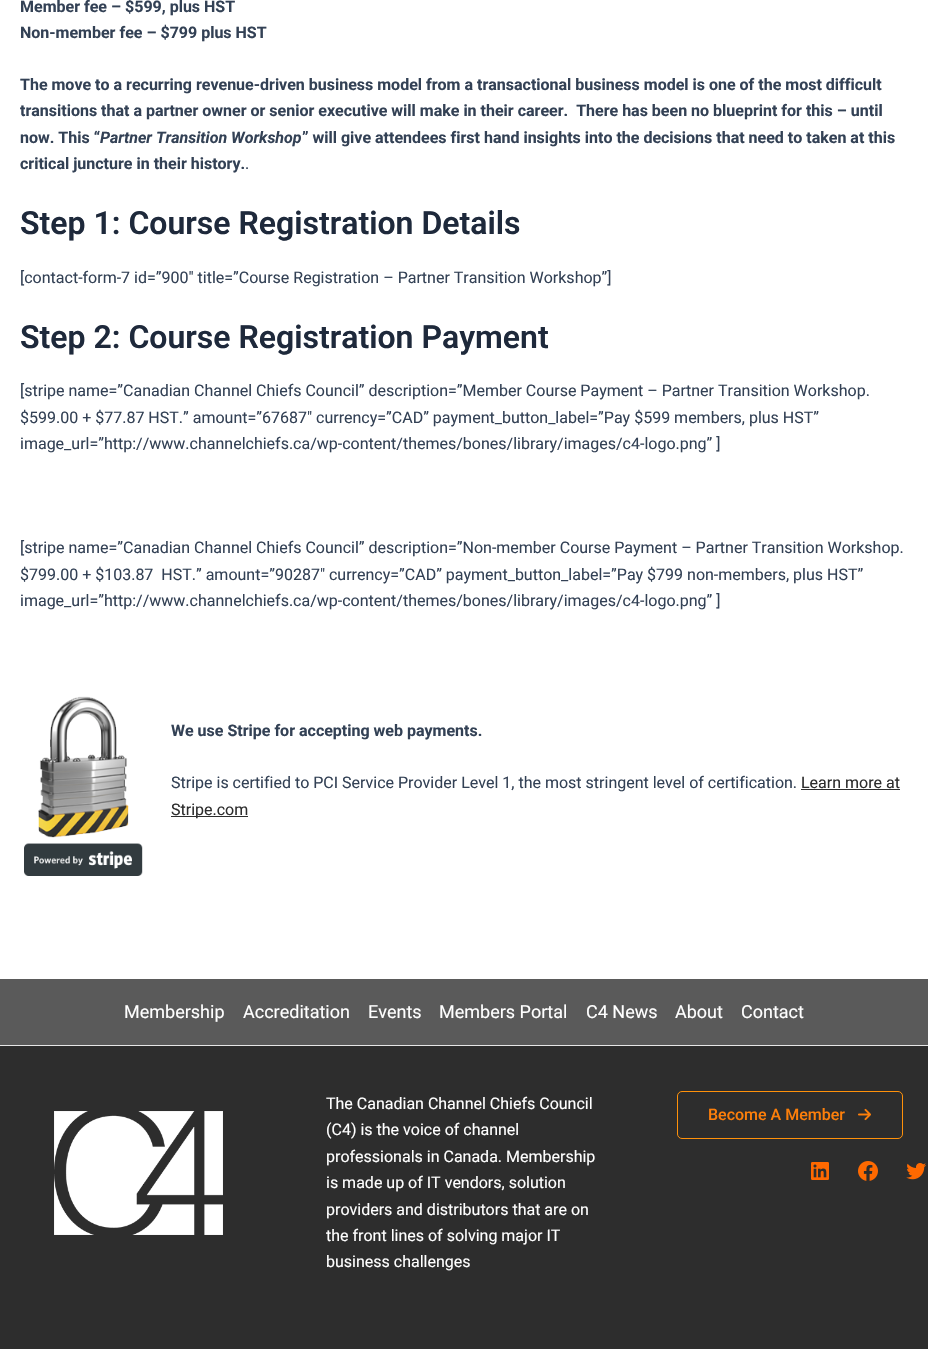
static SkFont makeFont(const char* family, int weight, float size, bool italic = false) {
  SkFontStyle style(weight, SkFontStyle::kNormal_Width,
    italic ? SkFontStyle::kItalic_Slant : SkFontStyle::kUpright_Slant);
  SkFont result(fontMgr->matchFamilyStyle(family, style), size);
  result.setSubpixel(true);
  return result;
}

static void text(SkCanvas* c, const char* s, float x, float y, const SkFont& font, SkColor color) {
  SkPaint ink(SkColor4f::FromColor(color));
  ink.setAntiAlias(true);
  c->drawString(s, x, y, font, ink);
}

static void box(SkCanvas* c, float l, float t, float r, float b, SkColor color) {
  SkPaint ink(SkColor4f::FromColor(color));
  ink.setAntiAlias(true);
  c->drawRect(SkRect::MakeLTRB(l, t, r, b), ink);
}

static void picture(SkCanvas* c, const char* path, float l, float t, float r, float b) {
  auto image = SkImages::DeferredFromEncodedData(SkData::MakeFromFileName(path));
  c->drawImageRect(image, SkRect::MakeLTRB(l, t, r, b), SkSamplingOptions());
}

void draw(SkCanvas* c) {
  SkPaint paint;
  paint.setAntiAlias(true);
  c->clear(0xffffffff);
  SkFont face1 = makeFont("Roboto", 700, 16);
  text(c, "Member fee – $599, plus HST", 20, 12, face1, 0xff334155);
  text(c, "Non-member fee – $799 plus HST", 20, 38, face1, 0xff334155);
  text(c, "The move to a recurring revenue-driven business model from a transactional business model is one of the most difficult", 20, 90, face1, 0xff334155);
  text(c, "transitions that a partner owner or senior executive will make in their career.  There has been no blueprint for this – until", 20, 116, face1, 0xff334155);
  text(c, "now. This “", 20, 143, face1, 0xff334155);
  SkFont face2 = makeFont("Roboto", 700, 16, true);
  text(c, "Partner Transition Workshop", 100, 143, face2, 0xff334155);
  text(c, "” will give attendees first hand insights into the decisions that need to taken at this", 302, 143, face1, 0xff334155);
  text(c, "critical juncture in their history.", 20, 169, face1, 0xff334155);
  SkFont face3 = makeFont("Roboto", 400, 16);
  text(c, ".", 245, 169, face3, 0xff334155);
  SkFont face4 = makeFont("Roboto", 600, 32);
  text(c, "Step 1: Course Registration Details", 20, 234, face4, 0xff1e293b);
  text(c, "[contact-form-7 id=”900″ title=”Course Registration – Partner Transition Workshop”]", 20, 283, face3, 0xff334155);
  text(c, "Step 2: Course Registration Payment", 20, 348, face4, 0xff1e293b);
  text(c, "[stripe name=”Canadian Channel Chiefs Council” description=”Member Course Payment – Partner Transition Workshop.", 20, 396, face3, 0xff334155);
  text(c, "$599.00 + $77.87 HST.” amount=”67687″ currency=”CAD” payment_button_label=”Pay $599 members, plus HST”", 20, 423, face3, 0xff334155);
  text(c, "image_url=”http://www.channelchiefs.ca/wp-content/themes/bones/library/images/c4-logo.png” ]", 20, 449, face3, 0xff334155);
  text(c, "[stripe name=”Canadian Channel Chiefs Council” description=”Non-member Course Payment – Partner Transition Workshop.", 20, 553, face3, 0xff334155);
  text(c, "$799.00 + $103.87  HST.” amount=”90287″ currency=”CAD” payment_button_label=”Pay $799 non-members, plus HST”", 20, 580, face3, 0xff334155);
  text(c, "image_url=”http://www.channelchiefs.ca/wp-content/themes/bones/library/images/c4-logo.png” ]", 20, 606, face3, 0xff334155);
  picture(c, "img_01.png", 24, 696, 143, 876);
  text(c, "We use Stripe for accepting web payments.", 171, 736, face1, 0xff334155);
  text(c, "Stripe is certified to PCI Service Provider Level 1, the most stringent level of certification.", 171, 788, face3, 0xff334155);
  text(c, "Learn more at", 801, 788, face3, 0xff2d2d2d);
  box(c, 801, 789, 900, 790, 0xff2d2d2d);
  box(c, 171, 816, 248, 817, 0xff2d2d2d);
  text(c, "Stripe.com", 171, 815, face3, 0xff2d2d2d);
  box(c, 0, 979, 928, 1045, 0xff5a5a5a);
  SkFont face5 = makeFont("Roboto", 400, 18);
  text(c, "Membership", 124, 1018, face5, 0xffffffff);
  text(c, "Accreditation", 243, 1018, face5, 0xffffffff);
  text(c, "Events", 368, 1018, face5, 0xffffffff);
  text(c, "Members Portal", 439, 1018, face5, 0xffffffff);
  text(c, "C4 News", 586, 1018, face5, 0xffffffff);
  text(c, "About", 675, 1018, face5, 0xffffffff);
  text(c, "Contact", 741, 1018, face5, 0xffffffff);
  box(c, 0, 1046, 928, 1349, 0xff2d2d2d);
  box(c, 0, 1045, 928, 1046, 0xffe6e6e6);
  picture(c, "img_02.png", 54, 1111, 223, 1235);
  text(c, "The Canadian Channel Chiefs Council", 326, 1109, face3, 0xffffffff);
  text(c, "(C4) is the voice of channel", 326, 1135, face3, 0xffffffff);
  text(c, "professionals in Canada. Membership", 326, 1162, face3, 0xffffffff);
  text(c, "is made up of IT vendors, solution", 326, 1188, face3, 0xffffffff);
  text(c, "providers and distributors that are on", 326, 1215, face3, 0xffffffff);
  text(c, "the front lines of solving major IT", 326, 1241, face3, 0xffffffff);
  text(c, "business challenges", 326, 1267, face3, 0xffffffff);
  paint.setStyle(SkPaint::kStroke_Style);
  paint.setStrokeWidth(1);
  paint.setColor(0xffff910a);
  c->drawRoundRect(SkRect::MakeLTRB(677.5f, 1091.5f, 902.5f, 1138.5f), 4.5f, 4.5f, paint);
  SkFont face6 = makeFont("Roboto", 500, 16);
  text(c, "Become A Member", 708, 1120, face6, 0xfffd7f0a);
  picture(c, "img_03.png", 858, 1108, 871, 1121);
  picture(c, "img_04.png", 811, 1162, 829, 1180);
  picture(c, "img_05.png", 858, 1161, 878, 1181);
  picture(c, "img_06.png", 906, 1163, 926, 1180);
}
